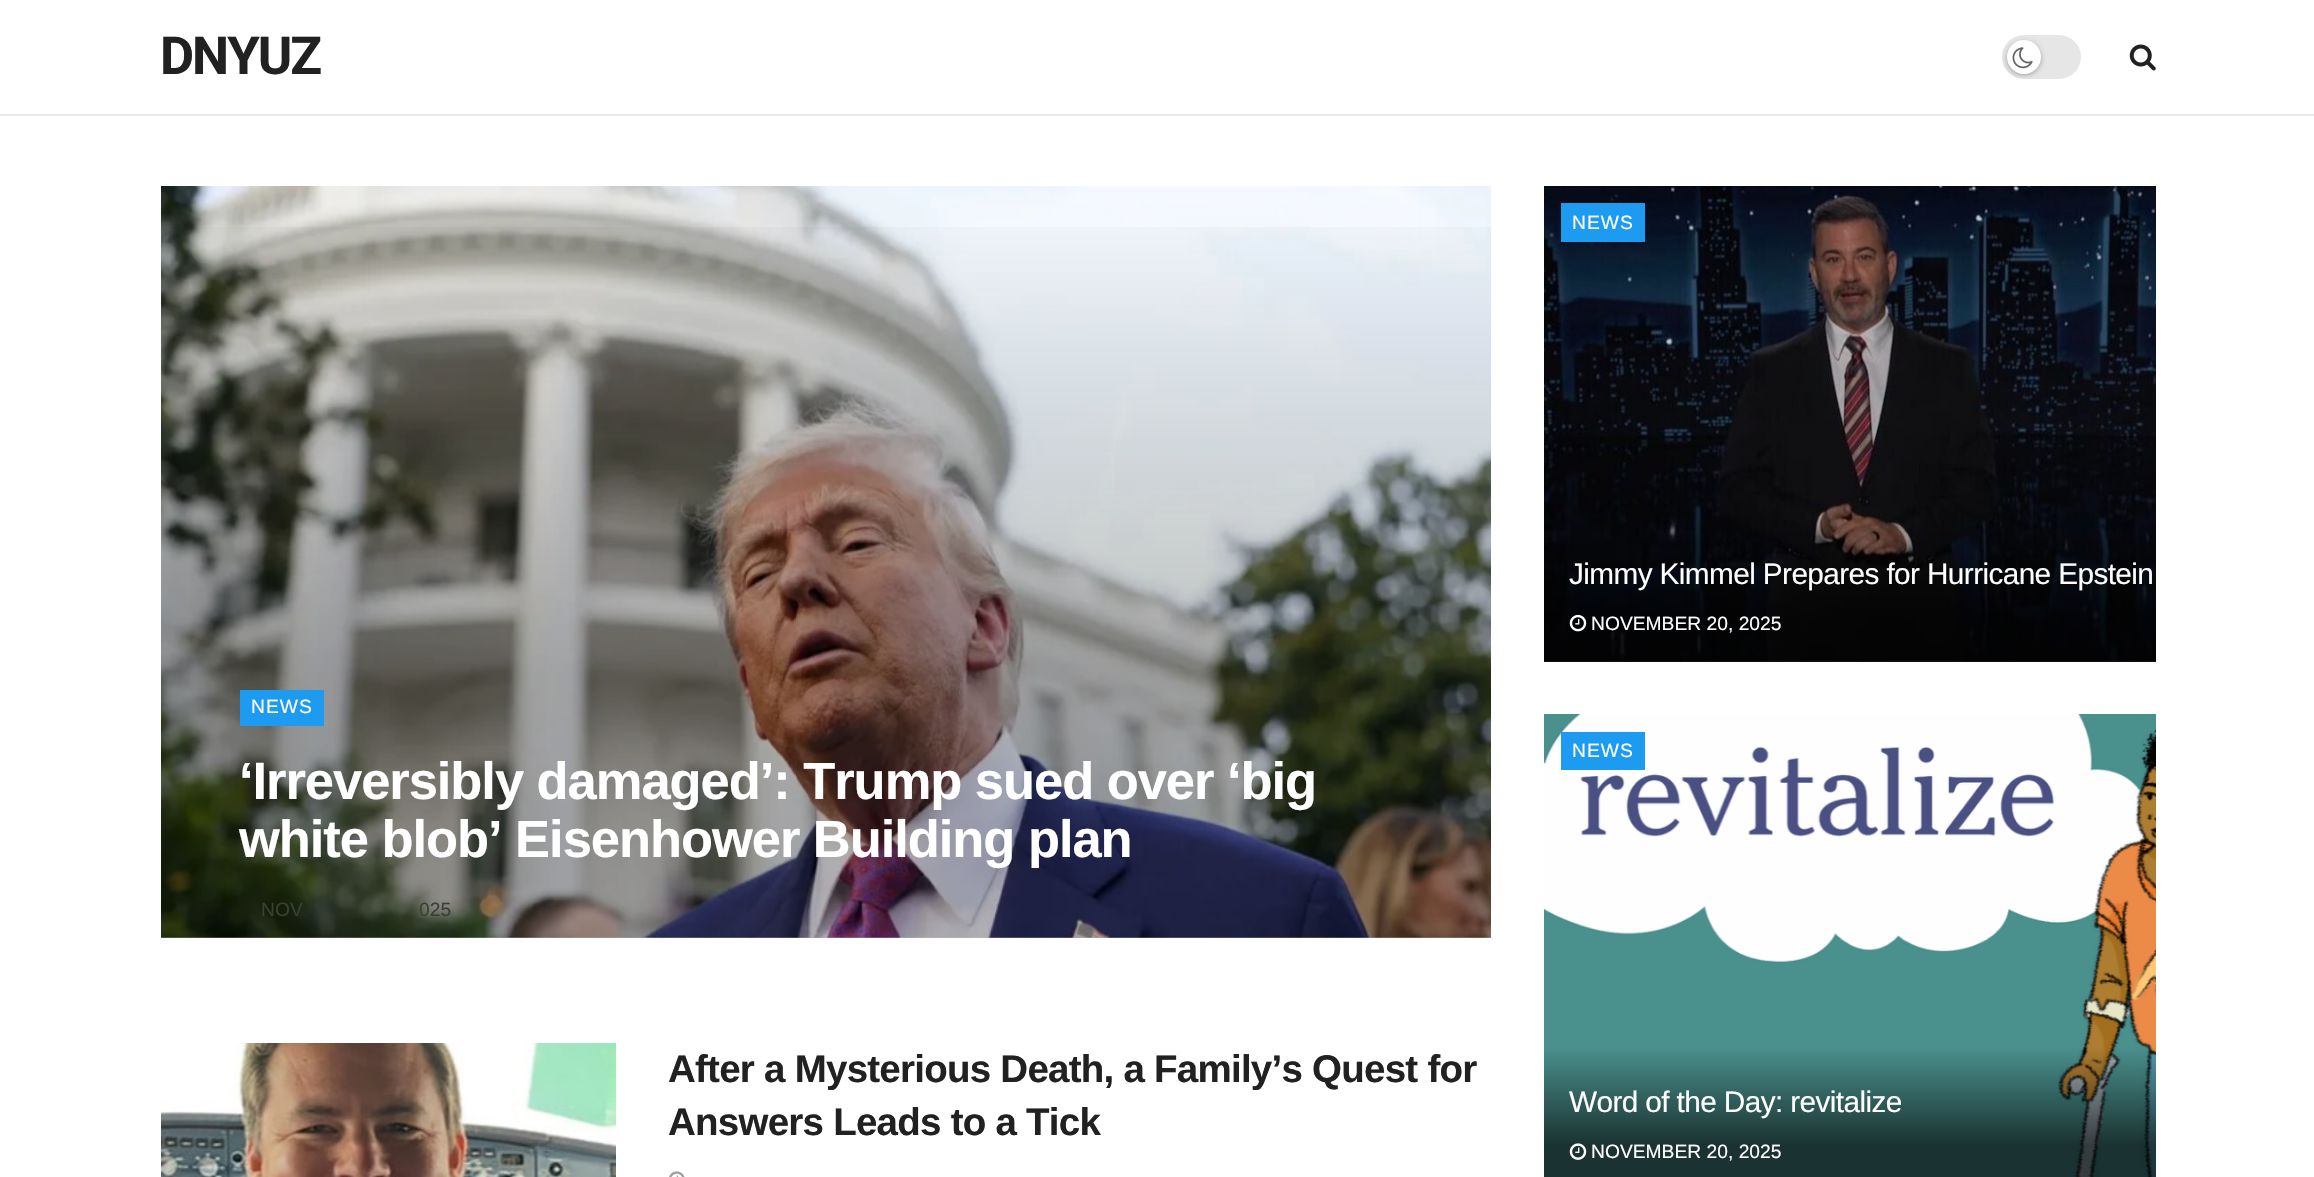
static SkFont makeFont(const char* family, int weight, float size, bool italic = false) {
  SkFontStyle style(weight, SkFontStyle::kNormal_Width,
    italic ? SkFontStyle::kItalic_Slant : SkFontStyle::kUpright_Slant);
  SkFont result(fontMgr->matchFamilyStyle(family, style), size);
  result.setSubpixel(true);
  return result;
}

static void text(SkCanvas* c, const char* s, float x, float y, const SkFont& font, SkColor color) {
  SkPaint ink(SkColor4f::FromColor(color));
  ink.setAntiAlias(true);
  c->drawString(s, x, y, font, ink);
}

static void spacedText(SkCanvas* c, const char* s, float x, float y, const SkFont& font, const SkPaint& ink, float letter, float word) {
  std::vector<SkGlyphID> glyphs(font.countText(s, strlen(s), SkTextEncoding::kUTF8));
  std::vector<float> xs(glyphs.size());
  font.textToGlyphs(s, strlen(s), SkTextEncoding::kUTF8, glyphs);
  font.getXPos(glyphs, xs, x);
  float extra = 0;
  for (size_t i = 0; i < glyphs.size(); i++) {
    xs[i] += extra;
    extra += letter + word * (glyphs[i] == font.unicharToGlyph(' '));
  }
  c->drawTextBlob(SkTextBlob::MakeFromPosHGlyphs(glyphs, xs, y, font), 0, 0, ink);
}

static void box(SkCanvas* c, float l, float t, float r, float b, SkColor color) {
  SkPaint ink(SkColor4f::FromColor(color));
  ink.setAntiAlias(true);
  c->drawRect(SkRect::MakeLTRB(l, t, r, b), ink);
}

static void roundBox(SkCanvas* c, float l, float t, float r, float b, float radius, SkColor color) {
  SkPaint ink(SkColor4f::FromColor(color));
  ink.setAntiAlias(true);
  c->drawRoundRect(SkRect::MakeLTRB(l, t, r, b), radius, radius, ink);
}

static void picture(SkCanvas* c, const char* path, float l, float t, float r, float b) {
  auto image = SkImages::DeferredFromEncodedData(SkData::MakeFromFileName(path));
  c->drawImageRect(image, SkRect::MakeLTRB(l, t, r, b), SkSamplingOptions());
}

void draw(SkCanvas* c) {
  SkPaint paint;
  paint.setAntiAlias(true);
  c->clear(0xffffffff);
  box(c, 0, 114, 2314, 116, 0xffe8e8e8);
  SkFont face1 = makeFont("Roboto", 700, 52.5f);
  paint.setColor(0xff212121);
  spacedText(c, "DNYUZ", 160, 74, face1, paint, -2, 0);
  roundBox(c, 2002, 35, 2081, 79, 22, 0xffe6e6e6);
  paint.setColor(0x4d000000);
  paint.setMaskFilter(SkMaskFilter::MakeBlur(kNormal_SkBlurStyle, 2.5f));
  c->drawRoundRect(SkRect::MakeLTRB(2007, 42, 2041, 75), 16.5f, 16.5f, paint);
  paint.setMaskFilter(nullptr);
  paint.setColor(0xffffffff);
  c->drawCircle(2024, 57, 17, paint);
  picture(c, "img_01.png", 2012, 47, 2033, 69);
  picture(c, "img_02.png", 2129, 44, 2156, 71);
  picture(c, "img_03.png", 161, 186, 1491, 938);
  {
    const SkColor colors[] = {0x00000000, 0x40000000, 0x40000000};
    const float stops[] = {0, 0.65f, 1};
    const SkPoint ends[] = {{800, 185}, {800, 938}};
    paint.setShader(SkGradientShader::MakeLinear(ends, colors, stops, 3, SkTileMode::kClamp));
    paint.setAlpha(255);
  }
  c->drawRect(SkRect::MakeLTRB(161, 227, 1491, 938), paint);
  box(c, 240, 690, 324, 726, 0xff1d9bf0);
  SkFont face2 = makeFont("Liberation Sans", 400, 19.25f);
  paint.setShader(nullptr);
  paint.setColor(0xffffffff);
  spacedText(c, "NEWS", 251, 713, face2, paint, 1, 0);
  SkFont face3 = makeFont("Liberation Sans", 700, 52.5f);
  spacedText(c, "‘Irreversibly damaged’: Trump sued over ‘big", 239, 799, face3, paint, -1.05f, 0);
  spacedText(c, "white blob’ Eisenhower Building plan", 239, 857, face3, paint, -1.05f, 0);
  text(c, "NOV", 261, 916, face2, 0xff384131);
  text(c, "025", 419, 916, face2, 0xff384131);
  picture(c, "img_04.png", 161, 1043, 616, 1177);
  SkFont face4 = makeFont("Liberation Sans", 700, 38.5f);
  paint.setColor(0xff212121);
  spacedText(c, "After a Mysterious Death, a Family’s Quest for", 668, 1082, face4, paint, -0.75f, 0);
  spacedText(c, "Answers Leads to a Tick", 668, 1135, face4, paint, -0.75f, 0);
  picture(c, "img_05.png", 669, 1171, 685, 1177);
  picture(c, "img_06.png", 1544, 186, 2156, 662);
  box(c, 1561, 203, 1645, 242, 0xff1d9bf0);
  paint.setColor(0xffffffff);
  spacedText(c, "NEWS", 1572, 229, face2, paint, 1, 0);
  {
    const SkColor colors[] = {0x00000000, 0xa6000000};
    const float stops[] = {0, 0.7f};
    const SkPoint ends[] = {{1876, 518}, {1876, 662}};
    paint.setShader(SkGradientShader::MakeLinear(ends, colors, stops, 2, SkTileMode::kClamp));
    paint.setAlpha(255);
  }
  c->drawRect(SkRect::MakeLTRB(1544, 521, 2156, 662), paint);
  SkFont face5 = makeFont("Liberation Sans", 400, 29.75f);
  paint.setShader(nullptr);
  paint.setColor(0xffffffff);
  spacedText(c, "Jimmy Kimmel Prepares for Hurricane Epstein", 1569, 584, face5, paint, -0.6f, 0);
  picture(c, "img_07.png", 1569, 614, 1587, 632);
  text(c, "NOVEMBER 20, 2025", 1591, 630, face2, 0xffffffff);
  picture(c, "img_08.png", 1544, 714, 2156, 1177);
  box(c, 1561, 732, 1645, 770, 0xff1d9bf0);
  spacedText(c, "NEWS", 1572, 757, face2, paint, 1, 0);
  spacedText(c, "Word of the Day: revitalize", 1569, 1112, face5, paint, -0.6f, 0);
  picture(c, "img_09.png", 1569, 1143, 1587, 1160);
  text(c, "NOVEMBER 20, 2025", 1591, 1158, face2, 0xffffffff);
}
